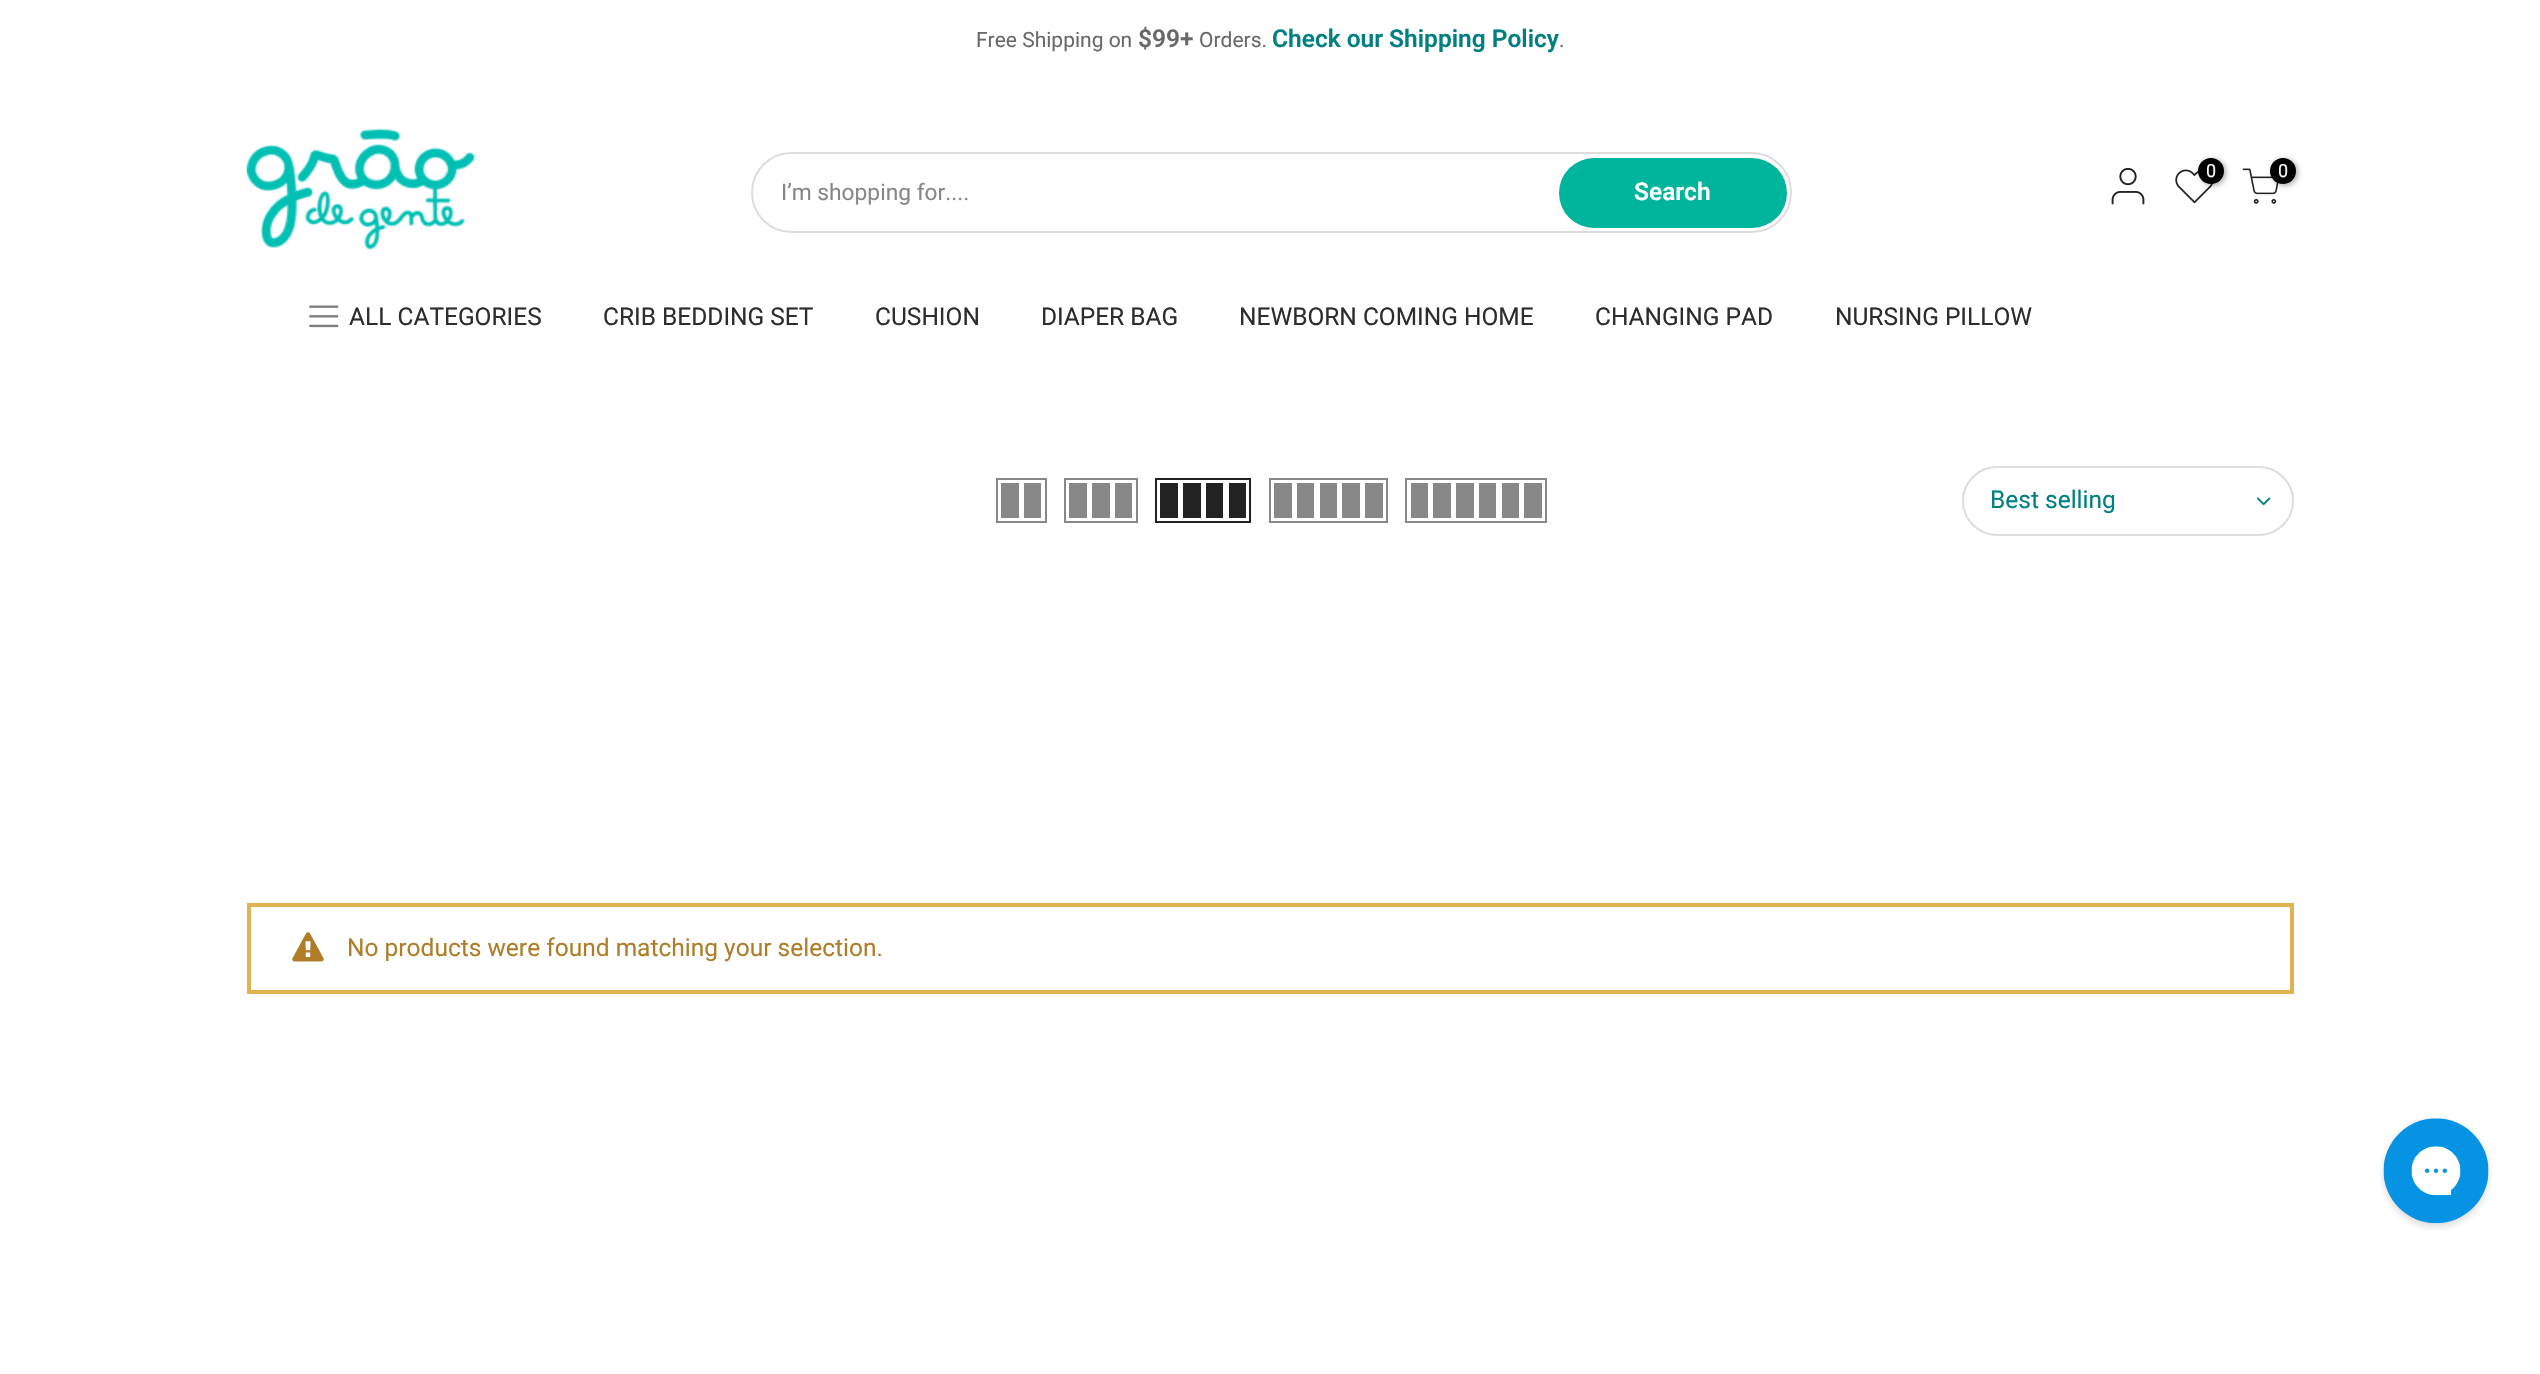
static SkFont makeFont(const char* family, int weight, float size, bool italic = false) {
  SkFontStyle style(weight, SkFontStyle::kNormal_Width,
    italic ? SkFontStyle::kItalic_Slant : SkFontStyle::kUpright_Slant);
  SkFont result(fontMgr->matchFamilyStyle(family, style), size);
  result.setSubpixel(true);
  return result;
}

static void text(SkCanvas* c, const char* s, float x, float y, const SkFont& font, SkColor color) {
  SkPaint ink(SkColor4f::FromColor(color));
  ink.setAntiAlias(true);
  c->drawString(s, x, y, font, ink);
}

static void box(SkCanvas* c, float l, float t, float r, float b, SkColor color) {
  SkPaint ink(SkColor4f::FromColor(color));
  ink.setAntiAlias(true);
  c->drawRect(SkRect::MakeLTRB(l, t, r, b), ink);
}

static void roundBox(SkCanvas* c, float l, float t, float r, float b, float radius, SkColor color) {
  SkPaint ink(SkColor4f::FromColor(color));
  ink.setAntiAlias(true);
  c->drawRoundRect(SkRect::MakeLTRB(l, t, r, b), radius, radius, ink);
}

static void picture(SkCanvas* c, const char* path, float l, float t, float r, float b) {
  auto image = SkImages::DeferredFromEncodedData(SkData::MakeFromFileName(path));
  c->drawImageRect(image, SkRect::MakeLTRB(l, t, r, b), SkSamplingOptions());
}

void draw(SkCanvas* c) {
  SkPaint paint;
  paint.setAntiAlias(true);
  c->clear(0xffffffff);
  SkFont face1 = makeFont("Roboto", 400, 21);
  text(c, "Free Shipping on", 976, 47, face1, 0xff696969);
  SkFont face2 = makeFont("Roboto", 600, 24.5f);
  text(c, "$99+", 1138, 47, face2, 0xff696969);
  text(c, "Orders.", 1199, 47, face1, 0xff696969);
  text(c, "Check our Shipping Policy", 1272, 47, face2, 0xff008080);
  text(c, ".", 1559, 47, face1, 0xff696969);
  picture(c, "img_01.png", 246, 128, 475, 250);
  picture(c, "img_02.png", 2111, 167, 2145, 205);
  picture(c, "img_03.png", 2175, 169, 2214, 204);
  paint.setColor(0x4d000000);
  paint.setMaskFilter(SkMaskFilter::MakeBlur(kNormal_SkBlurStyle, 2.5f));
  c->drawRoundRect(SkRect::MakeLTRB(2200, 159, 2226, 186), 13, 13, paint);
  paint.setMaskFilter(nullptr);
  paint.setColor(0xff000000);
  c->drawCircle(2211, 171, 13, paint);
  SkFont face3 = makeFont("Roboto", 400, 18);
  text(c, "0", 2206, 177, face3, 0xffffffff);
  picture(c, "img_04.png", 2242, 168, 2279, 204);
  paint.setColor(0x4d000000);
  paint.setMaskFilter(SkMaskFilter::MakeBlur(kNormal_SkBlurStyle, 2.5f));
  c->drawRoundRect(SkRect::MakeLTRB(2272, 159, 2298, 186), 13, 13, paint);
  paint.setMaskFilter(nullptr);
  paint.setColor(0xff000000);
  c->drawCircle(2283, 171, 13, paint);
  text(c, "0", 2278, 177, face3, 0xffffffff);
  paint.setStyle(SkPaint::kStroke_Style);
  paint.setStrokeWidth(2);
  paint.setColor(0xffdddddd);
  c->drawRoundRect(SkRect::MakeLTRB(752, 153, 1791, 232), 39.5f, 39.5f, paint);
  SkFont face4 = makeFont("Roboto", 400, 22.75f);
  text(c, "I’m shopping for....", 781, 200, face4, 0xff878787);
  roundBox(c, 1559, 158, 1787, 228, 35, 0xff00b59b);
  text(c, "Search", 1634, 200, face2, 0xffffffff);
  picture(c, "img_05.png", 309, 305, 339, 328);
  SkFont face5 = makeFont("Roboto", 400, 24.5f);
  text(c, "ALL CATEGORIES", 349, 325, face5, 0xff2d2d2d);
  text(c, "CRIB BEDDING SET", 603, 325, face5, 0xff2d2d2d);
  text(c, "CUSHION", 875, 325, face5, 0xff2d2d2d);
  text(c, "DIAPER BAG", 1041, 325, face5, 0xff2d2d2d);
  text(c, "NEWBORN COMING HOME", 1239, 325, face5, 0xff2d2d2d);
  text(c, "CHANGING PAD", 1595, 325, face5, 0xff2d2d2d);
  text(c, "NURSING PILLOW", 1835, 325, face5, 0xff2d2d2d);
  paint.setColor(0xff878787);
  c->drawRect(SkRect::MakeLTRB(997, 479, 1046, 522), paint);
  box(c, 1024, 483, 1041, 518, 0xff878787);
  box(c, 1001, 483, 1019, 518, 0xff878787);
  c->drawRect(SkRect::MakeLTRB(1065, 479, 1137, 522), paint);
  box(c, 1115, 483, 1132, 518, 0xff878787);
  box(c, 1092, 483, 1110, 518, 0xff878787);
  box(c, 1069, 483, 1087, 518, 0xff878787);
  paint.setColor(0xff222222);
  c->drawRect(SkRect::MakeLTRB(1156, 479, 1250, 522), paint);
  box(c, 1229, 483, 1246, 518, 0xff222222);
  box(c, 1206, 483, 1223, 518, 0xff222222);
  box(c, 1183, 483, 1201, 518, 0xff222222);
  box(c, 1160, 483, 1178, 518, 0xff222222);
  paint.setColor(0xff878787);
  c->drawRect(SkRect::MakeLTRB(1270, 479, 1387, 522), paint);
  box(c, 1365, 483, 1383, 518, 0xff878787);
  box(c, 1342, 483, 1360, 518, 0xff878787);
  box(c, 1320, 483, 1337, 518, 0xff878787);
  box(c, 1297, 483, 1314, 518, 0xff878787);
  box(c, 1274, 483, 1292, 518, 0xff878787);
  c->drawRect(SkRect::MakeLTRB(1406, 479, 1546, 522), paint);
  box(c, 1524, 483, 1542, 518, 0xff878787);
  box(c, 1502, 483, 1519, 518, 0xff878787);
  box(c, 1479, 483, 1496, 518, 0xff878787);
  box(c, 1456, 483, 1474, 518, 0xff878787);
  box(c, 1433, 483, 1451, 518, 0xff878787);
  box(c, 1411, 483, 1428, 518, 0xff878787);
  paint.setColor(0xffdddddd);
  c->drawRoundRect(SkRect::MakeLTRB(1963, 467, 2293, 535), 34, 34, paint);
  text(c, "Best selling", 1990, 508, face5, 0xff008080);
  picture(c, "img_06.png", 2256, 497, 2271, 506);
  paint.setStrokeWidth(4);
  paint.setColor(0xffe0b252);
  c->drawRect(SkRect::MakeLTRB(249, 905, 2292, 992), paint);
  picture(c, "img_07.png", 292, 932, 324, 962);
  text(c, "No products were found matching your selection.", 347, 956, face5, 0xffaf7d27);
  picture(c, "img_08.png", 2380, 1118, 2492, 1230);
}
